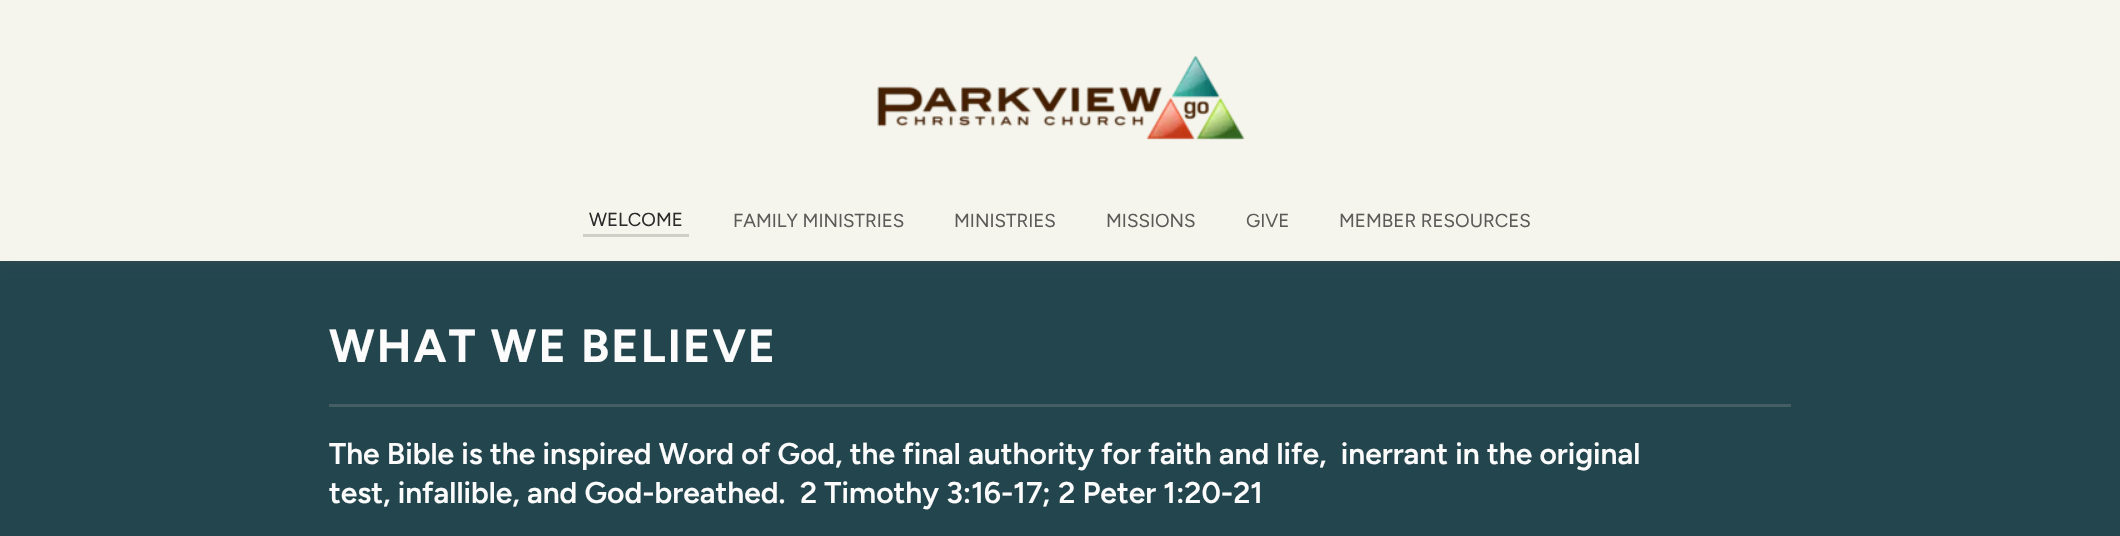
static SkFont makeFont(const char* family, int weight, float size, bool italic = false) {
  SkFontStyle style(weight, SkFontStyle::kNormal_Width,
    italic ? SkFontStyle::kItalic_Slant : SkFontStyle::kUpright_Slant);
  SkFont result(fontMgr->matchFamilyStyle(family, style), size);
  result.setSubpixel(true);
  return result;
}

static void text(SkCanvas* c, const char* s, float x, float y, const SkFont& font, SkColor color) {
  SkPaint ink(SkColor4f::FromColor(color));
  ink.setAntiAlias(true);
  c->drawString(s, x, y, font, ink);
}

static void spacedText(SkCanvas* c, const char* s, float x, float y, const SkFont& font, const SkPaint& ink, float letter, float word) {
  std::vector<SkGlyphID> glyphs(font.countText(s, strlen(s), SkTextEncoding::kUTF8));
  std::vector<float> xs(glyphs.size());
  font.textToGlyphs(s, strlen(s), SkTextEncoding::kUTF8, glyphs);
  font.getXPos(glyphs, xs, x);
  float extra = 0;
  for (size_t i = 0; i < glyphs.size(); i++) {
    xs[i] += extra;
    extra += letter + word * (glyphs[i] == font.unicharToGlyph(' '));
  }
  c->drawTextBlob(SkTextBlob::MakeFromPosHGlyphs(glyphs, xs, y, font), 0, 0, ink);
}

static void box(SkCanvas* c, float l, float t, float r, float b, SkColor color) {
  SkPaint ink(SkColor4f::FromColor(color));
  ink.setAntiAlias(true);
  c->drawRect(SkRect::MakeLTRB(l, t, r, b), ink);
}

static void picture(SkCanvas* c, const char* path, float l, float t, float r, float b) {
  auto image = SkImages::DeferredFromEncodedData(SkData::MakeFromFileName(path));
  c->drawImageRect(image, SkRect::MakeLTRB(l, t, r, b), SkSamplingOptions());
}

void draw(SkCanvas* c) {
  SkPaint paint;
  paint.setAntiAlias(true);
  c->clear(0xff23454d);
  paint.setColor(0x405d5d5d);
  paint.setMaskFilter(SkMaskFilter::MakeBlur(kNormal_SkBlurStyle, 6));
  c->drawRect(SkRect::MakeLTRB(0, 0, 2120, 261), paint);
  paint.setMaskFilter(nullptr);
  box(c, 0, 0, 2120, 261, 0xfff5f5ed);
  picture(c, "img_01.png", 877, 55, 1245, 140);
  box(c, 583, 234, 689, 237, 0xffcfcfc8);
  SkFont face1 = makeFont("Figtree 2", 300, 18.75f);
  text(c, "WELCOME", 589, 226, face1, 0xff2a2a2a);
  text(c, "FAMILY MINISTRIES", 733, 227, face1, 0xff5b5b59);
  text(c, "MINISTRIES", 954, 227, face1, 0xff5b5b59);
  text(c, "MISSIONS", 1106, 227, face1, 0xff5b5b59);
  text(c, "GIVE", 1246, 227, face1, 0xff5b5b59);
  text(c, "MEMBER RESOURCES", 1339, 227, face1, 0xff5b5b59);
  SkFont face2 = makeFont("Figtree", 300, 46.25f);
  paint.setColor(0xfffcfcfc);
  spacedText(c, "WHAT WE BELIEVE", 329, 362, face2, paint, 2.1f, 0);
  box(c, 329, 404, 1791, 407, 0xff435f65);
  SkFont face3 = makeFont("Figtree", 600, 30);
  text(c, "The Bible is the inspired Word of God, the final authority for faith and life,  inerrant in the original", 329, 464, face3, 0xfffcfcfc);
  text(c, "test, infallible, and God-breathed.", 329, 503, face3, 0xfffcfcfc);
  text(c, "2 Timothy 3:16-17; 2 Peter 1:20-21", 800, 503, face3, 0xfffcfcfc);
}
